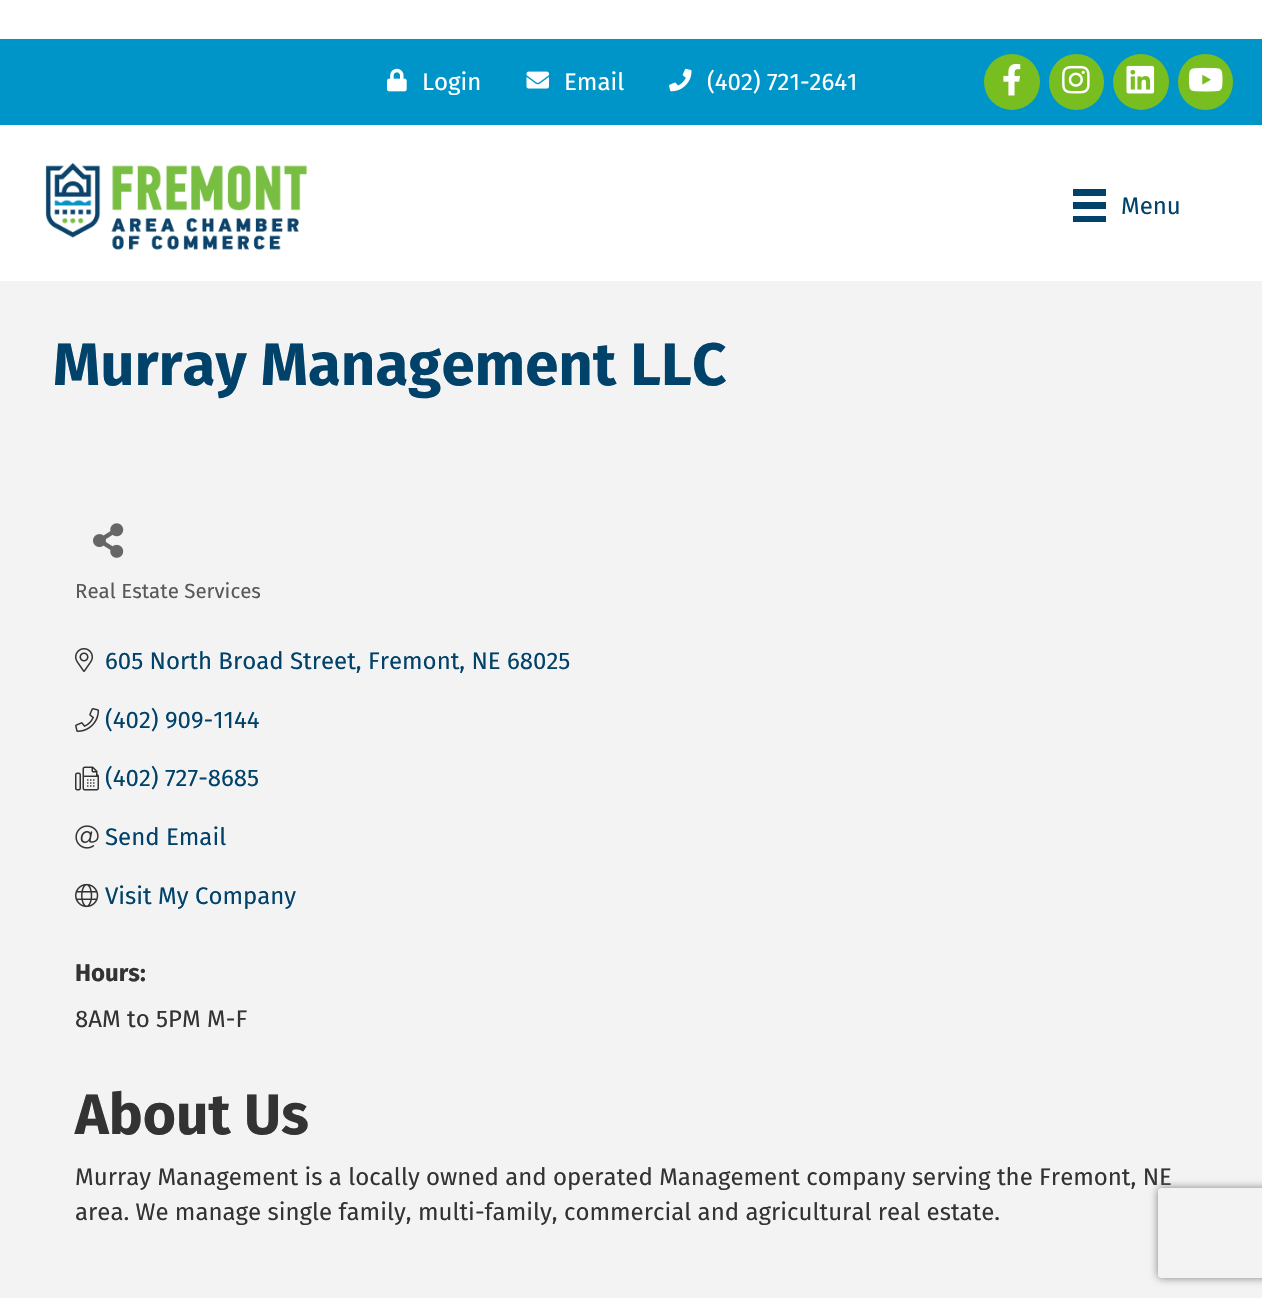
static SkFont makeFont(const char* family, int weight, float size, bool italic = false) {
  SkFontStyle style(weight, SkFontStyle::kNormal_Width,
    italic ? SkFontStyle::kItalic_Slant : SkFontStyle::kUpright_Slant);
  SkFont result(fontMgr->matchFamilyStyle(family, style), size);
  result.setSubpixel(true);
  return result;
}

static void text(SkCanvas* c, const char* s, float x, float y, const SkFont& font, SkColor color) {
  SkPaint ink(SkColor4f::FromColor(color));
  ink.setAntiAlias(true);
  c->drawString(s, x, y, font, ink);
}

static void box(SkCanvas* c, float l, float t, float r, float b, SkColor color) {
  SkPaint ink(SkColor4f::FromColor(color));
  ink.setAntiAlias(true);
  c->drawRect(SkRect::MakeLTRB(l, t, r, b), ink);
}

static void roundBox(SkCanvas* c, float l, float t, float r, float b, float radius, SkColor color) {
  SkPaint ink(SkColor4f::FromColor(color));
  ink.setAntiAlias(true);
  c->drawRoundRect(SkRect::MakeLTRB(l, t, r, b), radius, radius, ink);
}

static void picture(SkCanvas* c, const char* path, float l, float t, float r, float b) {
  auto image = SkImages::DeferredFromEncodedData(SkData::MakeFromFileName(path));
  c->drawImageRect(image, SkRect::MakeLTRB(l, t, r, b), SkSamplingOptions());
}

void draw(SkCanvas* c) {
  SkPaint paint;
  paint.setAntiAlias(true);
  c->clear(0xffffffff);
  box(c, 0, 39, 1262, 125, 0xff0095c8);
  picture(c, "img_01.png", 387, 68, 407, 92);
  SkFont face1 = makeFont("Fira Sans", 400, 24);
  text(c, "Login", 422, 90, face1, 0xffffffff);
  picture(c, "img_02.png", 526, 71, 549, 89);
  text(c, "Email", 564, 90, face1, 0xffffffff);
  picture(c, "img_03.png", 669, 68, 692, 92);
  text(c, "(402) 721-2641", 707, 90, face1, 0xffffffff);
  paint.setColor(0xff78be20);
  c->drawCircle(1012, 82, 28, paint);
  picture(c, "img_04.png", 1003, 63, 1021, 96);
  roundBox(c, 1049, 54, 1104, 110, 27.5f, 0xff78be20);
  picture(c, "img_05.png", 1062, 65, 1090, 94);
  c->drawCircle(1141, 82, 28, paint);
  picture(c, "img_06.png", 1126, 65, 1155, 94);
  roundBox(c, 1178, 54, 1233, 110, 27.5f, 0xff78be20);
  picture(c, "img_07.png", 1188, 67, 1223, 92);
  picture(c, "img_08.png", 45, 162, 307, 250);
  box(c, 1073, 189, 1106, 196, 0xff01426a);
  box(c, 1073, 202, 1106, 209, 0xff01426a);
  box(c, 1073, 216, 1106, 222, 0xff01426a);
  text(c, "Menu", 1121, 214, face1, 0xff01426a);
  box(c, 0, 281, 1262, 1298, 0xfff3f3f3);
  SkFont face2 = makeFont("Fira Sans", 700, 60);
  text(c, "Murray Management LLC", 53, 385, face2, 0xff01426a);
  picture(c, "img_09.png", 93, 523, 124, 558);
  SkFont face3 = makeFont("Fira Sans", 400, 20.5f);
  text(c, "Real Estate Services", 75, 598, face3, 0xff595959);
  picture(c, "img_10.png", 75, 648, 93, 672);
  text(c, "605 North Broad Street, Fremont, NE 68025", 105, 669, face1, 0xff01426a);
  picture(c, "img_11.png", 75, 708, 100, 732);
  text(c, "(402) 909-1144", 105, 728, face1, 0xff01426a);
  picture(c, "img_12.png", 75, 766, 99, 791);
  text(c, "(402) 727-8685", 105, 786, face1, 0xff01426a);
  picture(c, "img_13.png", 75, 825, 99, 849);
  text(c, "Send Email", 105, 845, face1, 0xff01426a);
  picture(c, "img_14.png", 75, 883, 99, 908);
  text(c, "Visit My Company", 105, 904, face1, 0xff01426a);
  SkFont face4 = makeFont("Fira Sans", 700, 24);
  text(c, "Hours:", 75, 981, face4, 0xff333333);
  text(c, "8AM to 5PM M-F", 75, 1027, face1, 0xff333333);
  SkFont face5 = makeFont("Fira Sans", 700, 57);
  text(c, "About Us", 75, 1134, face5, 0xff333333);
  text(c, "Murray Management is a locally owned and operated Management company serving the Fremont, NE", 75, 1185, face1, 0xff333333);
  text(c, "area. We manage single family, multi-family, commercial and agricultural real estate.", 75, 1220, face1, 0xff333333);
  c->save();
  c->clipPath(SkPathBuilder(SkPathFillType::kEvenOdd).moveTo(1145, 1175).lineTo(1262, 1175).lineTo(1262, 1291).lineTo(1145, 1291).close().moveTo(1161, 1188).lineTo(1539, 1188).cubicTo(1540.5f, 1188, 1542, 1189.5f, 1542, 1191).lineTo(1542, 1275).cubicTo(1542, 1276.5f, 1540.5f, 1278, 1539, 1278).lineTo(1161, 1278).cubicTo(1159.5f, 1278, 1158, 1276.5f, 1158, 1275).lineTo(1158, 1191).cubicTo(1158, 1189.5f, 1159.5f, 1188, 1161, 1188).close().detach(), true);
  paint.setColor(0xff808080);
  paint.setMaskFilter(SkMaskFilter::MakeBlur(kNormal_SkBlurStyle, 4));
  c->drawRoundRect(SkRect::MakeLTRB(1158, 1188, 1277, 1278), 3, 3, paint);
  paint.setMaskFilter(nullptr);
  c->restore();
}
